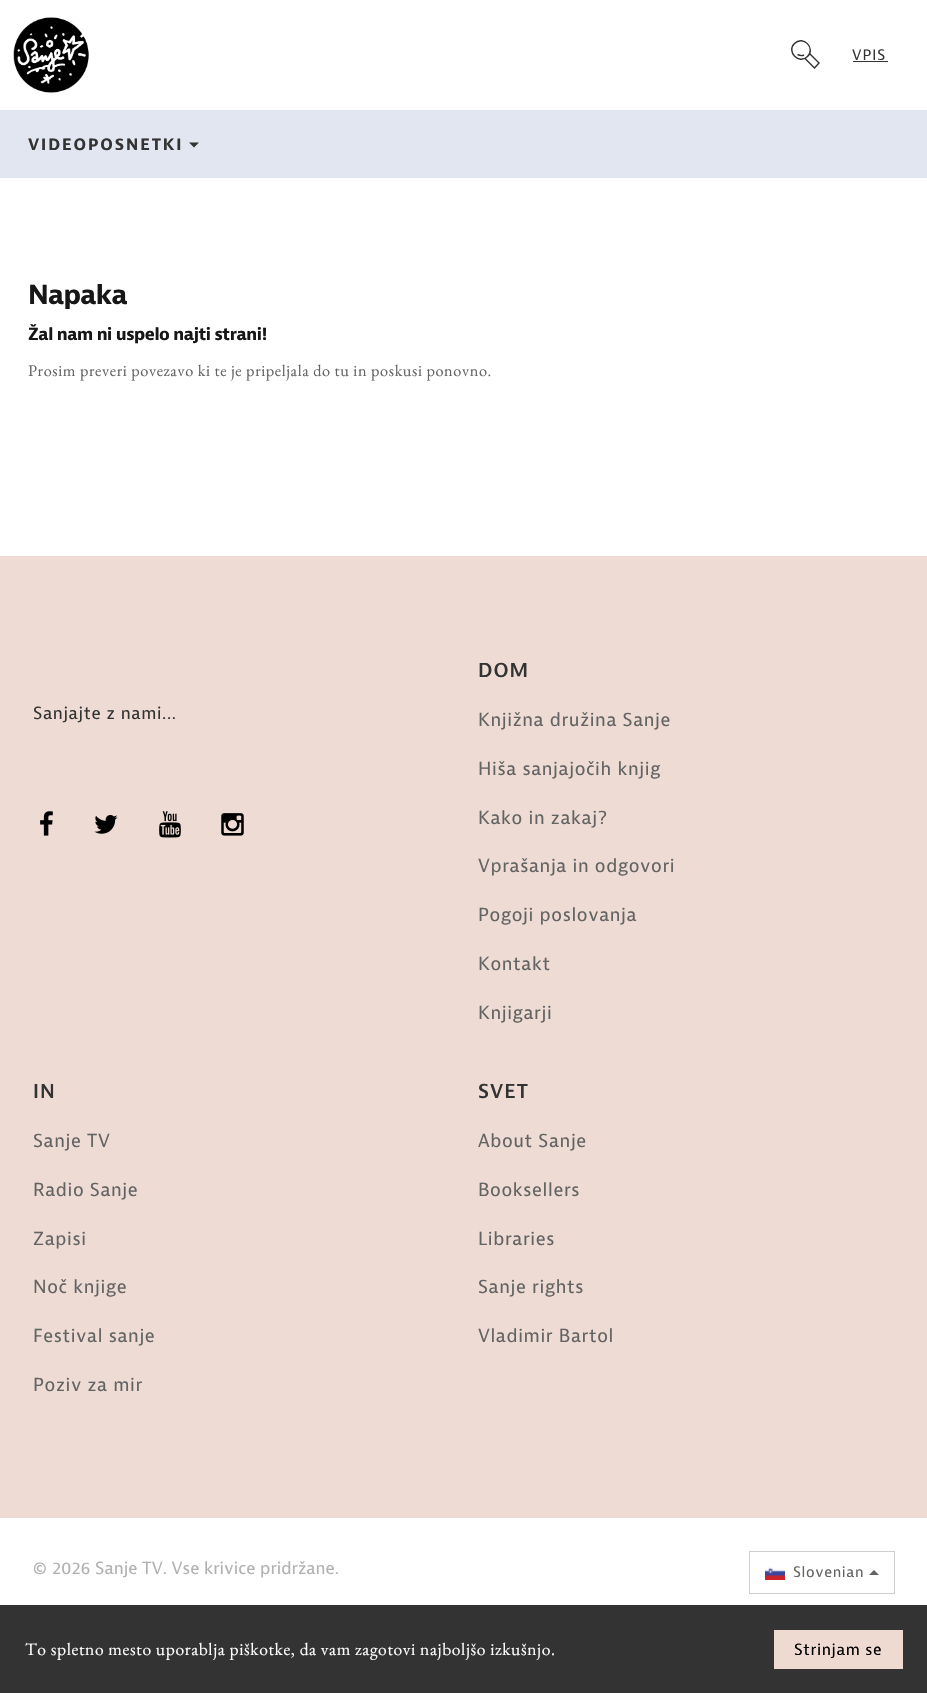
static SkFont makeFont(const char* family, int weight, float size, bool italic = false) {
  SkFontStyle style(weight, SkFontStyle::kNormal_Width,
    italic ? SkFontStyle::kItalic_Slant : SkFontStyle::kUpright_Slant);
  SkFont result(fontMgr->matchFamilyStyle(family, style), size);
  result.setSubpixel(true);
  return result;
}

static void text(SkCanvas* c, const char* s, float x, float y, const SkFont& font, SkColor color) {
  SkPaint ink(SkColor4f::FromColor(color));
  ink.setAntiAlias(true);
  c->drawString(s, x, y, font, ink);
}

static void spacedText(SkCanvas* c, const char* s, float x, float y, const SkFont& font, const SkPaint& ink, float letter, float word) {
  std::vector<SkGlyphID> glyphs(font.countText(s, strlen(s), SkTextEncoding::kUTF8));
  std::vector<float> xs(glyphs.size());
  font.textToGlyphs(s, strlen(s), SkTextEncoding::kUTF8, glyphs);
  font.getXPos(glyphs, xs, x);
  float extra = 0;
  for (size_t i = 0; i < glyphs.size(); i++) {
    xs[i] += extra;
    extra += letter + word * (glyphs[i] == font.unicharToGlyph(' '));
  }
  c->drawTextBlob(SkTextBlob::MakeFromPosHGlyphs(glyphs, xs, y, font), 0, 0, ink);
}

static void box(SkCanvas* c, float l, float t, float r, float b, SkColor color) {
  SkPaint ink(SkColor4f::FromColor(color));
  ink.setAntiAlias(true);
  c->drawRect(SkRect::MakeLTRB(l, t, r, b), ink);
}

static void picture(SkCanvas* c, const char* path, float l, float t, float r, float b) {
  auto image = SkImages::DeferredFromEncodedData(SkData::MakeFromFileName(path));
  c->drawImageRect(image, SkRect::MakeLTRB(l, t, r, b), SkSamplingOptions());
}

void draw(SkCanvas* c) {
  SkPaint paint;
  paint.setAntiAlias(true);
  c->clear(0xffffffff);
  picture(c, "img_01.png", 13, 17, 89, 93);
  paint.setStyle(SkPaint::kStroke_Style);
  paint.setStrokeWidth(1.4f);
  paint.setColor(0xff303030);
  c->drawPath(SkPathBuilder().moveTo(805, 58.5f).lineTo(814.5f, 68).lineTo(819, 63).lineTo(810, 54).moveTo(807.5f, 56.5f).cubicTo(816, 48, 803, 35, 794.5f, 43.5f).cubicTo(786, 51.5f, 799, 65, 807.5f, 56.5f).close().moveTo(797.5f, 54.5f).cubicTo(799.5f, 55.5f, 802, 56, 804, 55).detach(), paint);
  SkFont face1 = makeFont("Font", 400, 15);
  paint.setStyle(SkPaint::kFill_Style);
  paint.setColor(0xff333333);
  spacedText(c, "VPIS", 852, 60, face1, paint, 1, 0);
  box(c, 853, 61, 888, 62, 0xff333333);
  box(c, 0, 110, 927, 178, 0xffe2e6f1);
  SkFont face2 = makeFont("Font", 700, 16.25f);
  spacedText(c, "VIDEOPOSNETKI", 28, 150, face2, paint, 1.9f, 0);
  c->drawPath(SkPathBuilder().moveTo(189, 142.5f).lineTo(199, 142.5f).lineTo(194, 147.5f).close().detach(), paint);
  SkFont face3 = makeFont("Font", 700, 27.5f);
  paint.setColor(0xff171717);
  spacedText(c, "Napaka", 28, 304, face3, paint, -0.75f, 0);
  SkFont face4 = makeFont("Font", 700, 17.5f);
  spacedText(c, "Žal nam ni uspelo najti strani!", 28, 340, face4, paint, -0.45f, 0);
  SkFont face5 = makeFont("EB Garamond", 400, 16.25f);
  paint.setColor(0xff636363);
  spacedText(c, "Prosim preveri povezavo ki te je pripeljala do tu in poskusi ponovno.", 28, 376, face5, paint, 0.62f, 0);
  box(c, 0, 556, 927, 1518, 0xffeddbd4);
  SkFont face6 = makeFont("Font", 400, 17.5f);
  paint.setColor(0xff333333);
  spacedText(c, "Sanjajte z nami...", 33, 719, face6, paint, 0.62f, 0);
  picture(c, "img_02.png", 40, 811, 53, 836);
  picture(c, "img_03.png", 94, 815, 118, 834);
  picture(c, "img_04.png", 159, 811, 181, 838);
  picture(c, "img_05.png", 221, 813, 244, 836);
  SkFont face7 = makeFont("Font", 600, 20);
  spacedText(c, "DOM", 478, 677, face7, paint, 1, 0);
  SkFont face8 = makeFont("Font", 400, 18.75f);
  paint.setColor(0xff636363);
  spacedText(c, "Knjižna družina Sanje", 478, 726, face8, paint, 0.62f, 0);
  spacedText(c, "Hiša sanjajočih knjig", 478, 775, face8, paint, 0.62f, 0);
  spacedText(c, "Kako in zakaj?", 478, 824, face8, paint, 0.62f, 0);
  spacedText(c, "Vprašanja in odgovori", 478, 872, face8, paint, 0.62f, 0);
  spacedText(c, "Pogoji poslovanja", 478, 921, face8, paint, 0.62f, 0);
  spacedText(c, "Kontakt", 478, 970, face8, paint, 0.62f, 0);
  spacedText(c, "Knjigarji", 478, 1019, face8, paint, 0.62f, 0);
  paint.setColor(0xff333333);
  spacedText(c, "IN", 33, 1098, face7, paint, 1, 0);
  paint.setColor(0xff636363);
  spacedText(c, "Sanje TV", 33, 1147, face8, paint, 0.62f, 0);
  spacedText(c, "Radio Sanje", 33, 1196, face8, paint, 0.62f, 0);
  spacedText(c, "Zapisi", 33, 1245, face8, paint, 0.62f, 0);
  spacedText(c, "Noč knjige", 33, 1293, face8, paint, 0.62f, 0);
  spacedText(c, "Festival sanje", 33, 1342, face8, paint, 0.62f, 0);
  spacedText(c, "Poziv za mir", 33, 1391, face8, paint, 0.62f, 0);
  paint.setColor(0xff333333);
  spacedText(c, "SVET", 478, 1098, face7, paint, 1, 0);
  paint.setColor(0xff636363);
  spacedText(c, "About Sanje", 478, 1147, face8, paint, 0.62f, 0);
  spacedText(c, "Booksellers", 478, 1196, face8, paint, 0.62f, 0);
  spacedText(c, "Libraries", 478, 1245, face8, paint, 0.62f, 0);
  spacedText(c, "Sanje rights", 478, 1293, face8, paint, 0.62f, 0);
  spacedText(c, "Vladimir Bartol", 478, 1342, face8, paint, 0.62f, 0);
  text(c, "© 2026 Sanje TV. Vse krivice pridržane.", 33, 1574, face6, 0xffb1b1b1);
  paint.setStyle(SkPaint::kStroke_Style);
  paint.setStrokeWidth(1);
  paint.setColor(0xffcecece);
  c->drawRect(SkRect::MakeLTRB(749.5f, 1551.5f, 894.5f, 1593.5f), paint);
  picture(c, "img_06.png", 765, 1567, 785, 1580);
  paint.setStyle(SkPaint::kFill_Style);
  paint.setColor(0xff636363);
  spacedText(c, "Slovenian", 793, 1577, face1, paint, 0.62f, 0);
  c->drawPath(SkPathBuilder().moveTo(879, 1575).lineTo(869, 1575).lineTo(874, 1570).close().detach(), paint);
  box(c, 0, 1605, 927, 1693, 0xff333333);
  SkFont face9 = makeFont("EB Garamond", 400, 17.5f);
  paint.setColor(0xffffffff);
  spacedText(c, "To spletno mesto uporablja piškotke, da vam zagotovi najboljšo izkušnjo.", 25, 1655, face9, paint, 0.62f, 0);
  box(c, 774, 1630, 903, 1669, 0xffefdad2);
  SkFont face10 = makeFont("Font", 400, 16.25f);
  paint.setColor(0xff000000);
  spacedText(c, "Strinjam se", 794, 1655, face10, paint, 0.62f, 0);
}
